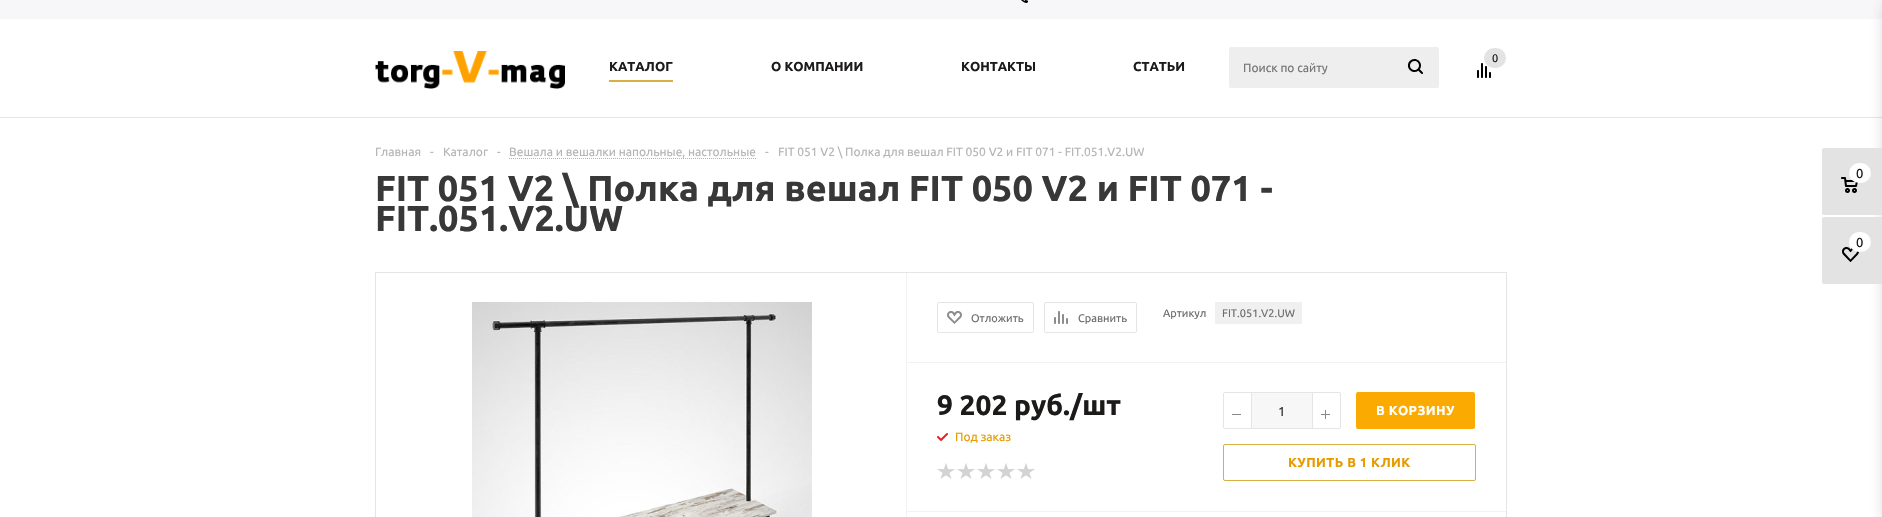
static SkFont makeFont(const char* family, int weight, float size, bool italic = false) {
  SkFontStyle style(weight, SkFontStyle::kNormal_Width,
    italic ? SkFontStyle::kItalic_Slant : SkFontStyle::kUpright_Slant);
  SkFont result(fontMgr->matchFamilyStyle(family, style), size);
  result.setSubpixel(true);
  return result;
}

static void text(SkCanvas* c, const char* s, float x, float y, const SkFont& font, SkColor color) {
  SkPaint ink(SkColor4f::FromColor(color));
  ink.setAntiAlias(true);
  c->drawString(s, x, y, font, ink);
}

static void spacedText(SkCanvas* c, const char* s, float x, float y, const SkFont& font, const SkPaint& ink, float letter, float word) {
  std::vector<SkGlyphID> glyphs(font.countText(s, strlen(s), SkTextEncoding::kUTF8));
  std::vector<float> xs(glyphs.size());
  font.textToGlyphs(s, strlen(s), SkTextEncoding::kUTF8, glyphs);
  font.getXPos(glyphs, xs, x);
  float extra = 0;
  for (size_t i = 0; i < glyphs.size(); i++) {
    xs[i] += extra;
    extra += letter + word * (glyphs[i] == font.unicharToGlyph(' '));
  }
  c->drawTextBlob(SkTextBlob::MakeFromPosHGlyphs(glyphs, xs, y, font), 0, 0, ink);
}

static void box(SkCanvas* c, float l, float t, float r, float b, SkColor color) {
  SkPaint ink(SkColor4f::FromColor(color));
  ink.setAntiAlias(true);
  c->drawRect(SkRect::MakeLTRB(l, t, r, b), ink);
}

static void roundBox(SkCanvas* c, float l, float t, float r, float b, float radius, SkColor color) {
  SkPaint ink(SkColor4f::FromColor(color));
  ink.setAntiAlias(true);
  c->drawRoundRect(SkRect::MakeLTRB(l, t, r, b), radius, radius, ink);
}

static void picture(SkCanvas* c, const char* path, float l, float t, float r, float b) {
  auto image = SkImages::DeferredFromEncodedData(SkData::MakeFromFileName(path));
  c->drawImageRect(image, SkRect::MakeLTRB(l, t, r, b), SkSamplingOptions());
}

void draw(SkCanvas* c) {
  SkPaint paint;
  paint.setAntiAlias(true);
  c->clear(0xffffffff);
  box(c, 0, 0, 1882, 19, 0xfff7f7f9);
  picture(c, "img_01.png", 1021, 0, 1028, 3);
  box(c, 0, 117, 1882, 118, 0xffe5e5e5);
  picture(c, "img_02.png", 375, 51, 565, 89);
  box(c, 609, 80, 673, 82, 0xffd8ae46);
  SkFont face1 = makeFont("Ubuntu", 700, 13);
  text(c, "КАТАЛОГ", 609, 71, face1, 0xff1d1a1a);
  text(c, "О КОМПАНИИ", 771, 71, face1, 0xff1d1a1a);
  text(c, "КОНТАКТЫ", 961, 71, face1, 0xff1d1a1a);
  text(c, "СТАТЬИ", 1133, 71, face1, 0xff1d1a1a);
  roundBox(c, 1229, 47, 1439, 88, 2, 0xffeeeeee);
  SkFont face2 = makeFont("Ubuntu", 400, 12);
  text(c, "Поиск по сайту", 1243, 72, face2, 0xff757575);
  picture(c, "img_03.png", 1407, 59, 1423, 74);
  picture(c, "img_04.png", 1477, 63, 1491, 78);
  roundBox(c, 1484, 48, 1506, 68, 10, 0xffe3e3e3);
  SkFont face3 = makeFont("Ubuntu", 400, 11);
  text(c, "0", 1492, 62, face3, 0xff1d1a1a);
  paint.setColor(0x662c2c2c);
  paint.setMaskFilter(SkMaskFilter::MakeBlur(kNormal_SkBlurStyle, 9));
  c->drawRoundRect(SkRect::MakeLTRB(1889, 6, 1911, 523), 2, 2, paint);
  paint.setMaskFilter(nullptr);
  paint.setColor(0xffe3e3e3);
  c->drawPath(SkPathBuilder().moveTo(1824, 148).lineTo(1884, 148).lineTo(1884, 215).lineTo(1824, 215).cubicTo(1823, 215, 1822, 214, 1822, 213).lineTo(1822, 150).cubicTo(1822, 149, 1823, 148, 1824, 148).close().detach(), paint);
  picture(c, "img_05.png", 1841, 177, 1858, 193);
  roundBox(c, 1849, 163, 1871, 183, 10, 0xffffffff);
  SkFont face4 = makeFont("Ubuntu", 400, 13);
  text(c, "0", 1856, 178, face4, 0xff1d1a1a);
  c->drawPath(SkPathBuilder().moveTo(1824, 217).lineTo(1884, 217).lineTo(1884, 284).lineTo(1824, 284).cubicTo(1823, 284, 1822, 283, 1822, 282).lineTo(1822, 219).cubicTo(1822, 218, 1823, 217, 1824, 217).close().detach(), paint);
  picture(c, "img_06.png", 1842, 247, 1859, 262);
  roundBox(c, 1849, 232, 1871, 252, 10, 0xffffffff);
  text(c, "0", 1856, 247, face4, 0xff1d1a1a);
  text(c, "Главная", 375, 156, face2, 0xffb6b5b5);
  text(c, "-", 430, 156, face2, 0xffb6b5b5);
  text(c, "Каталог", 443, 156, face2, 0xffb6b5b5);
  text(c, "-", 497, 156, face2, 0xffb6b5b5);
  text(c, "Вешала и вешалки напольные, настольные", 509, 156, face2, 0xffb6b5b5);
  paint.setStyle(SkPaint::kStroke_Style);
  paint.setStrokeWidth(1);
  paint.setColor(0xffb4b4b4);
  paint.setPathEffect(SkDashPathEffect::Make({{1, 1}}, 0));
  c->drawPath(SkPathBuilder().moveTo(509, 158.5f).lineTo(756, 158.5f).detach(), paint);
  paint.setPathEffect(nullptr);
  text(c, "-", 765, 156, face2, 0xffb6b5b5);
  text(c, "FIT 051 V2 \\ Полка для вешал FIT 050 V2 и FIT 071 - FIT.051.V2.UW", 778, 156, face2, 0xffb6b5b5);
  SkFont face5 = makeFont("Ubuntu", 700, 36);
  text(c, "FIT 051 V2 \\ Полка для вешал FIT 050 V2 и FIT 071 -", 375, 201, face5, 0xff383838);
  text(c, "FIT.051.V2.UW", 375, 231, face5, 0xff383838);
  paint.setColor(0xffe5e5e5);
  c->drawRect(SkRect::MakeLTRB(375.5f, 272.5f, 1506.5f, 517.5f), paint);
  picture(c, "img_07.png", 472, 302, 812, 517);
  box(c, 906, 273, 907, 517, 0xfff2f2f2);
  box(c, 907, 362, 1506, 363, 0xfff2f2f2);
  c->drawRoundRect(SkRect::MakeLTRB(937.5f, 302.5f, 1033.5f, 332.5f), 1.5f, 1.5f, paint);
  picture(c, "img_08.png", 947, 311, 962, 324);
  text(c, "Отложить", 971, 322, face3, 0xff6d6d6d);
  c->drawRoundRect(SkRect::MakeLTRB(1044.5f, 302.5f, 1136.5f, 332.5f), 1.5f, 1.5f, paint);
  picture(c, "img_09.png", 1054, 311, 1068, 324);
  text(c, "Сравнить", 1078, 322, face3, 0xff6d6d6d);
  text(c, "Артикул", 1163, 317, face3, 0xff6d6d6d);
  box(c, 1215, 302, 1302, 324, 0xfff0f0f0);
  text(c, "FIT.051.V2.UW", 1222, 317, face3, 0xff6d6d6d);
  box(c, 907, 511, 1506, 512, 0xfff2f2f2);
  SkFont face6 = makeFont("Ubuntu", 700, 28);
  text(c, "9 202 руб./шт", 937, 415, face6, 0xff1d1a1a);
  picture(c, "img_10.png", 937, 433, 948, 441);
  text(c, "Под заказ", 955, 441, face2, 0xffe69c00);
  picture(c, "img_11.png", 937, 463, 955, 479);
  picture(c, "img_11.png", 957, 463, 975, 479);
  picture(c, "img_11.png", 977, 463, 995, 479);
  picture(c, "img_11.png", 997, 463, 1015, 479);
  picture(c, "img_11.png", 1017, 463, 1035, 479);
  c->drawRoundRect(SkRect::MakeLTRB(1223.5f, 392.5f, 1340.5f, 428.5f), 1.5f, 1.5f, paint);
  box(c, 1232, 414, 1241, 415, 0xff888888);
  box(c, 1252, 393, 1312, 428, 0xfff7f7f7);
  box(c, 1312, 393, 1313, 428, 0xffe5e5e5);
  box(c, 1251, 393, 1252, 428, 0xffe5e5e5);
  text(c, "1", 1278, 416, face4, 0xff383838);
  picture(c, "img_12.png", 1321, 410, 1330, 419);
  roundBox(c, 1356, 392, 1475, 429, 2, 0xfffaaa00);
  paint.setStyle(SkPaint::kFill_Style);
  paint.setColor(0xffffffff);
  spacedText(c, "В КОРЗИНУ", 1376, 415, face1, paint, 0.4f, 0);
  paint.setStyle(SkPaint::kStroke_Style);
  paint.setColor(0xffd8ae46);
  c->drawRoundRect(SkRect::MakeLTRB(1223.5f, 444.5f, 1475.5f, 480.5f), 1.5f, 1.5f, paint);
  paint.setStyle(SkPaint::kFill_Style);
  paint.setColor(0xffe69c00);
  spacedText(c, "КУПИТЬ В 1 КЛИК", 1288, 467, face1, paint, 0.4f, 0);
}
